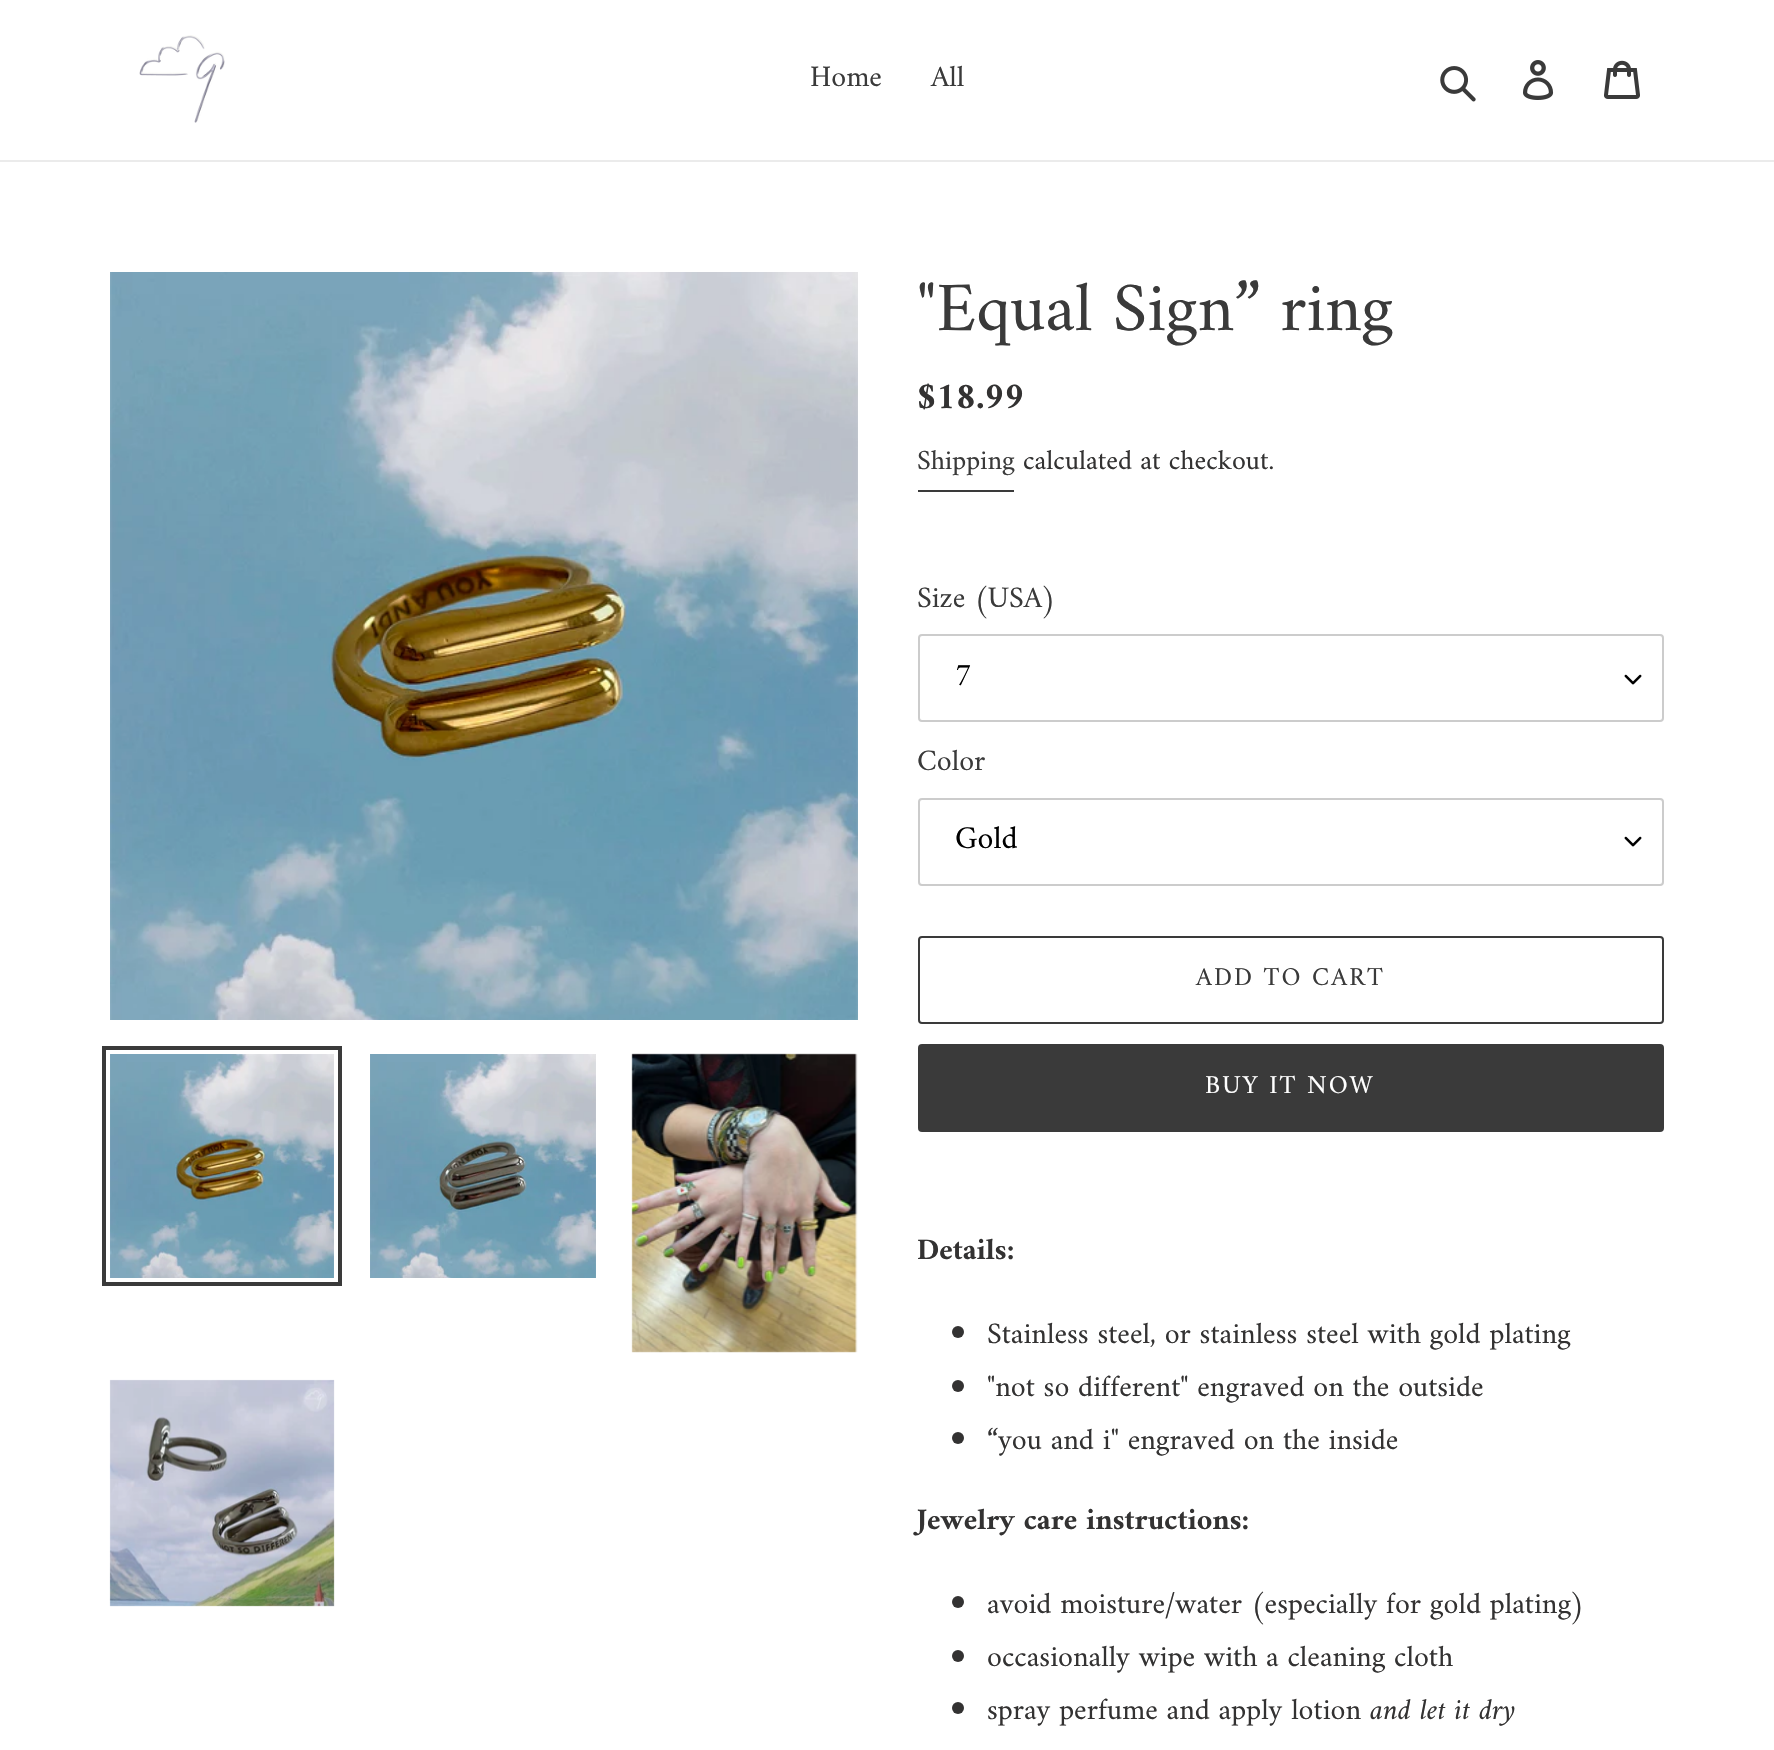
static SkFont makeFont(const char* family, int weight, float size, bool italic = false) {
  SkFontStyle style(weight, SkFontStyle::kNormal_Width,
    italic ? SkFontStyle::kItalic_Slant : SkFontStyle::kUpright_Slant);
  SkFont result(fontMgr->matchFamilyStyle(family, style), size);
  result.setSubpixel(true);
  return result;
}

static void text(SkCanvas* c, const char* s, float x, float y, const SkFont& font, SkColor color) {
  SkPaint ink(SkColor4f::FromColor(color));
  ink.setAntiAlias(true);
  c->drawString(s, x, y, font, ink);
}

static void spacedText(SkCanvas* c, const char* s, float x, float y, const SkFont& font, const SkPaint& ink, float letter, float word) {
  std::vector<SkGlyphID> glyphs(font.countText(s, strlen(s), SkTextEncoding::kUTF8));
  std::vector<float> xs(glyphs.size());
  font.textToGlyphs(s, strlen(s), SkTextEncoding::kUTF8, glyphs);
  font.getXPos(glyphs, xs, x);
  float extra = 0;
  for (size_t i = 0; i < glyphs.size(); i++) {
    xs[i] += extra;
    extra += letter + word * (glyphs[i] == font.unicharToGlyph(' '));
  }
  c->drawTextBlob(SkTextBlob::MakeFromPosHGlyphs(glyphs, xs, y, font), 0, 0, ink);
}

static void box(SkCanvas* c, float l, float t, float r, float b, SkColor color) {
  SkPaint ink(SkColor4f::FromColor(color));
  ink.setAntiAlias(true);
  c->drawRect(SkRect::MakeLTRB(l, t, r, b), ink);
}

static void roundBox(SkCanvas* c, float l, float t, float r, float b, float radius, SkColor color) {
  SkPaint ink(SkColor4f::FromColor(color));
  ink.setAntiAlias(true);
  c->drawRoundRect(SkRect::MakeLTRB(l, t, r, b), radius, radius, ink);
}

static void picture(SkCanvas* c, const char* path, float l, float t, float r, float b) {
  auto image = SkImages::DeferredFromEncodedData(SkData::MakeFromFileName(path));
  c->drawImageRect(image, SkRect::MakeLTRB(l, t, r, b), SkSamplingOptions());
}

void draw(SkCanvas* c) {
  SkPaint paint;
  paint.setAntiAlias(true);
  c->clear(0xffffffff);
  box(c, 0, 160, 1774, 162, 0xffebebeb);
  picture(c, "img_01.png", 139, 35, 225, 123);
  SkFont face1 = makeFont("Amiri", 400, 30);
  text(c, "Home", 810, 86, face1, 0xff3a3a3a);
  text(c, "All", 931, 86, face1, 0xff3a3a3a);
  picture(c, "img_02.png", 1440, 66, 1476, 102);
  picture(c, "img_03.png", 1523, 60, 1554, 100);
  picture(c, "img_04.png", 1604, 60, 1640, 99);
  picture(c, "img_05.png", 110, 272, 858, 1020);
  paint.setStyle(SkPaint::kStroke_Style);
  paint.setStrokeWidth(4);
  paint.setColor(0xff3a3a3a);
  c->drawRect(SkRect::MakeLTRB(104, 1048, 340, 1284), paint);
  picture(c, "img_06.png", 110, 1054, 334, 1278);
  picture(c, "img_07.png", 370, 1054, 596, 1278);
  picture(c, "img_08.png", 631, 1053, 858, 1353);
  picture(c, "img_09.png", 109, 1379, 335, 1607);
  SkFont face2 = makeFont("Amiri", 400, 70);
  text(c, "\"Equal Sign” ring", 917, 330, face2, 0xff3a3a3a);
  SkFont face3 = makeFont("Amiri", 700, 37.5f);
  text(c, "$18.99", 917, 408, face3, 0xff333232);
  SkFont face4 = makeFont("Amiri", 400, 28);
  text(c, "Shipping", 917, 469, face4, 0xff3a3a3a);
  box(c, 918, 490, 1014, 492, 0xff3a3a3a);
  text(c, "calculated at checkout.", 1023, 469, face4, 0xff333232);
  text(c, "Size (USA)", 917, 607, face1, 0xff3a3a3a);
  picture(c, "img_10.png", 1624, 674, 1642, 685);
  paint.setStrokeWidth(2);
  paint.setColor(0xffcccccc);
  c->drawRoundRect(SkRect::MakeLTRB(919, 635, 1663, 721), 3, 3, paint);
  SkFont face5 = makeFont("Amiri", 400, 32);
  text(c, "7", 955, 685, face5, 0xff000000);
  text(c, "Color", 917, 770, face1, 0xff3a3a3a);
  picture(c, "img_10.png", 1624, 836, 1642, 847);
  c->drawRoundRect(SkRect::MakeLTRB(919, 799, 1663, 885), 3, 3, paint);
  text(c, "Gold", 955, 848, face5, 0xff000000);
  paint.setColor(0xff3a3a3a);
  c->drawRoundRect(SkRect::MakeLTRB(919, 937, 1663, 1023), 3, 3, paint);
  SkFont face6 = makeFont("Amiri", 400, 26);
  paint.setStyle(SkPaint::kFill_Style);
  spacedText(c, "ADD TO CART", 1196, 985, face6, paint, 2, 0);
  roundBox(c, 918, 1044, 1664, 1132, 4, 0xff3a3a3a);
  paint.setColor(0xffffffff);
  spacedText(c, "BUY IT NOW", 1205, 1093, face6, paint, 2, 0);
  SkFont face7 = makeFont("Amiri", 700, 30);
  text(c, "Details:", 917, 1259, face7, 0xff333232);
  paint.setColor(0xff333232);
  c->drawCircle(958, 1332, 6, paint);
  text(c, "Stainless steel, or stainless steel with gold plating", 987, 1343, face1, 0xff333232);
  c->drawCircle(958, 1386, 6, paint);
  text(c, "\"not so different\" engraved on the outside", 987, 1396, face1, 0xff333232);
  c->drawCircle(958, 1438, 6, paint);
  text(c, "“you and i\" engraved on the inside", 987, 1449, face1, 0xff333232);
  text(c, "Jewelry care instructions:", 917, 1529, face7, 0xff333232);
  c->drawCircle(958, 1602, 6, paint);
  text(c, "avoid moisture/water (especially for gold plating)", 987, 1613, face1, 0xff333232);
  c->drawCircle(958, 1656, 6, paint);
  text(c, "occasionally wipe with a cleaning cloth", 987, 1666, face1, 0xff333232);
  c->drawCircle(958, 1708, 6, paint);
  text(c, "spray perfume and apply lotion", 987, 1719, face1, 0xff333232);
  SkFont face8 = makeFont("Amiri", 400, 30, true);
  text(c, "and let it dry", 1370, 1719, face8, 0xff333232);
}
